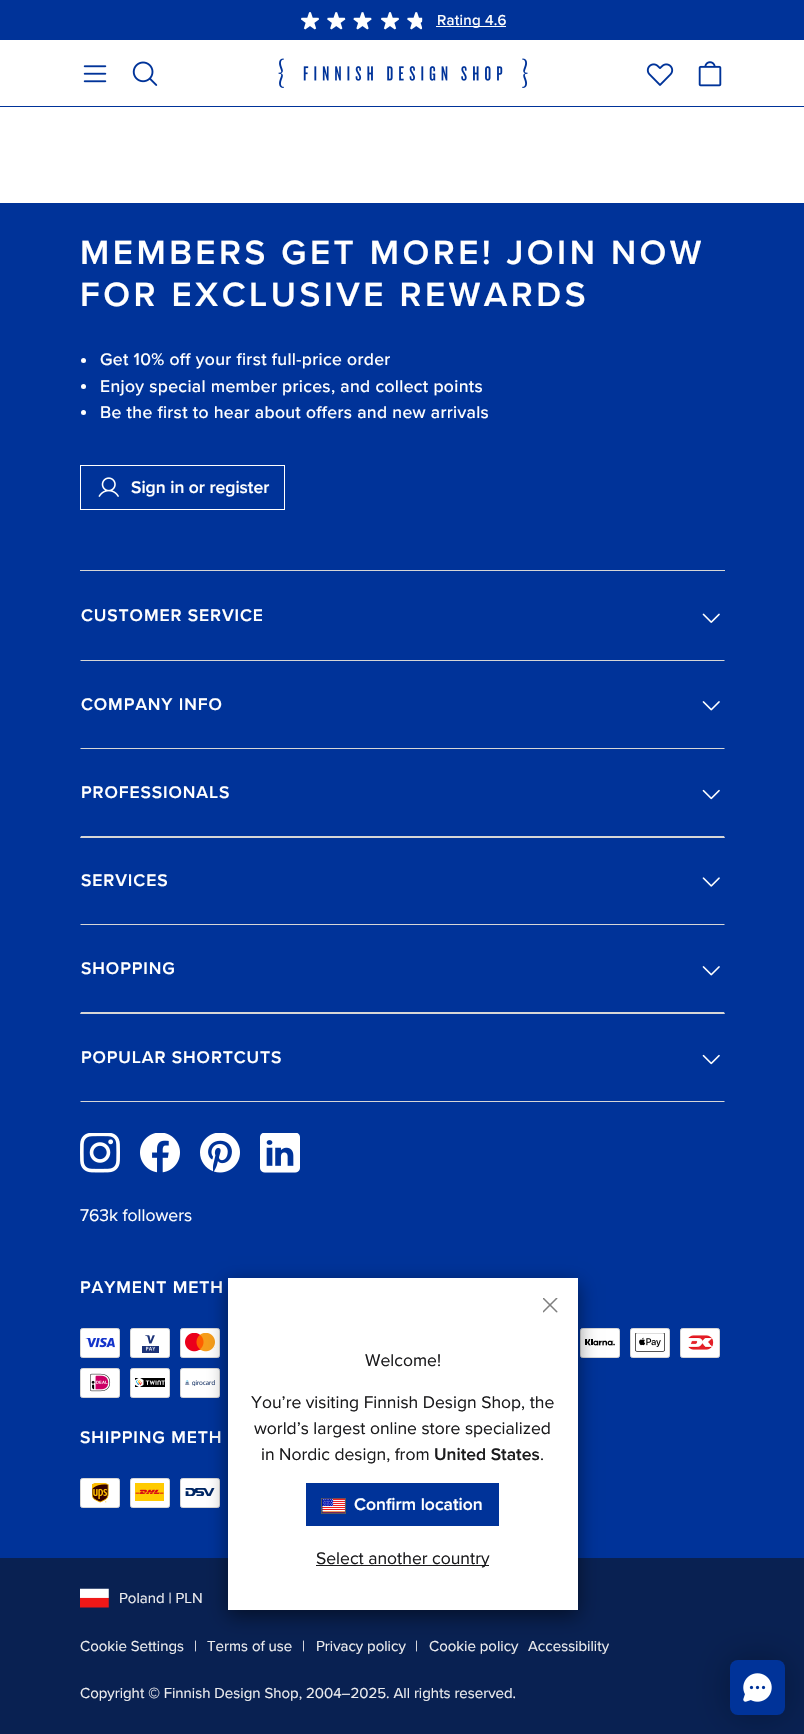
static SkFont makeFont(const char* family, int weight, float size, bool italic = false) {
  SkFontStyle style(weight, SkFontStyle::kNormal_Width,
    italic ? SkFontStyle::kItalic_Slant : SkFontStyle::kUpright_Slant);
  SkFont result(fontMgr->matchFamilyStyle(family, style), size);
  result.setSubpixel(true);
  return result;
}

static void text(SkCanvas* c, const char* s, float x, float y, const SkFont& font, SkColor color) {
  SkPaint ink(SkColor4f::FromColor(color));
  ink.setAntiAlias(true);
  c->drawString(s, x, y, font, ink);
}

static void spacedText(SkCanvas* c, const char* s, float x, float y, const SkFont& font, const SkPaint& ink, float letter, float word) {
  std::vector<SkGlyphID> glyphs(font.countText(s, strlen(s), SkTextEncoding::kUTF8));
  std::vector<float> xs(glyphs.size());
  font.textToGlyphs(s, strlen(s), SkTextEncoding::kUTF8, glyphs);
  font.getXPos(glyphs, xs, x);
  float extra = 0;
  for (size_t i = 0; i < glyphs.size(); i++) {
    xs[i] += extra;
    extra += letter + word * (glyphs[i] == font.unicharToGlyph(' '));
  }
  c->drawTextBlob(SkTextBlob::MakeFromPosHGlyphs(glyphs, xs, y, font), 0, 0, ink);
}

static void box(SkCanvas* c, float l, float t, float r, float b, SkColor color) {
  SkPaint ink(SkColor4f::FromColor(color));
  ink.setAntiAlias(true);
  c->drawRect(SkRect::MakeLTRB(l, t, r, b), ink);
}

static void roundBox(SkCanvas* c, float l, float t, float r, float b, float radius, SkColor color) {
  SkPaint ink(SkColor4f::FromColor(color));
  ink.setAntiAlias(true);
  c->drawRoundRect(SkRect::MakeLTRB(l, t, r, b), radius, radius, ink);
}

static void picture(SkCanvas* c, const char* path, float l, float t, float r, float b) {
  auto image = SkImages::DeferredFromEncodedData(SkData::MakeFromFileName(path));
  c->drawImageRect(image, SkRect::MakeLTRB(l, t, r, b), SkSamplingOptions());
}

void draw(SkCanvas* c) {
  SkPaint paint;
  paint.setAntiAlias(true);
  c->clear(0xffffffff);
  box(c, 0, 0, 804, 40, 0xff003399);
  picture(c, "img_01.png", 301, 12, 319, 30);
  picture(c, "img_02.png", 327, 12, 346, 30);
  picture(c, "img_03.png", 353, 12, 372, 30);
  picture(c, "img_01.png", 381, 12, 399, 30);
  picture(c, "img_04.png", 407, 12, 423, 30);
  box(c, 436, 26, 506, 27, 0xffffffff);
  SkFont face1 = makeFont("Proxima Nova", 500, 15);
  paint.setColor(0xffffffff);
  spacedText(c, "Rating 4.6", 437, 25, face1, paint, 0.25f, 0);
  box(c, 0, 106, 804, 107, 0xff003399);
  picture(c, "img_05.png", 83, 65, 107, 83);
  picture(c, "img_06.png", 132, 61, 158, 86);
  picture(c, "img_07.png", 278, 58, 528, 88);
  picture(c, "img_08.png", 646, 63, 674, 86);
  picture(c, "img_09.png", 698, 61, 722, 87);
  box(c, 0, 203, 804, 1558, 0xff003399);
  SkFont face2 = makeFont("Proxima Nova", 600, 35);
  spacedText(c, "MEMBERS GET MORE! JOIN NOW", 80, 264, face2, paint, 3.5f, 0);
  spacedText(c, "FOR EXCLUSIVE REWARDS", 80, 306, face2, paint, 3.5f, 0);
  c->drawCircle(83.5f, 360.5f, 2.5f, paint);
  SkFont face3 = makeFont("Proxima Nova", 500, 17.5f);
  spacedText(c, "Get 10% off your first full-price order", 100, 365, face3, paint, 0.35f, 0);
  c->drawCircle(83.5f, 386.5f, 2.5f, paint);
  spacedText(c, "Enjoy special member prices, and collect points", 100, 392, face3, paint, 0.35f, 0);
  c->drawCircle(83.5f, 412.5f, 2.5f, paint);
  spacedText(c, "Be the first to hear about offers and new arrivals", 100, 418, face3, paint, 0.35f, 0);
  paint.setStyle(SkPaint::kStroke_Style);
  paint.setStrokeWidth(1);
  c->drawRect(SkRect::MakeLTRB(80.5f, 465.5f, 284.5f, 509.5f), paint);
  picture(c, "img_10.png", 98, 477, 119, 497);
  SkFont face4 = makeFont("Proxima Nova", 600, 17.5f);
  text(c, "Sign in or register", 131, 493, face4, 0xffffffff);
  box(c, 80, 570, 725, 571, 0xffd6d6d6);
  paint.setStyle(SkPaint::kFill_Style);
  paint.setColor(0xffd6d6d6);
  c->drawPath(SkPathBuilder().moveTo(725, 661).lineTo(80, 661).lineTo(81, 660).lineTo(724, 660).close().detach(), paint);
  paint.setColor(0xffffffff);
  spacedText(c, "CUSTOMER SERVICE", 81, 621, face4, paint, 0.9f, 0);
  picture(c, "img_11.png", 702, 613, 720, 623);
  paint.setColor(0xffd6d6d6);
  c->drawPath(SkPathBuilder().moveTo(725, 749).lineTo(80, 749).lineTo(81, 748).lineTo(724, 748).close().detach(), paint);
  paint.setColor(0xffffffff);
  spacedText(c, "COMPANY INFO", 81, 710, face4, paint, 0.9f, 0);
  picture(c, "img_12.png", 702, 701, 720, 711);
  paint.setColor(0xffd6d6d6);
  c->drawPath(SkPathBuilder().moveTo(725, 838).lineTo(80, 838).lineTo(81, 836).lineTo(724, 836).close().detach(), paint);
  paint.setColor(0xffffffff);
  spacedText(c, "PROFESSIONALS", 81, 798, face4, paint, 0.9f, 0);
  picture(c, "img_13.png", 702, 789, 720, 800);
  paint.setColor(0xffd6d6d6);
  c->drawPath(SkPathBuilder().moveTo(725, 925).lineTo(80, 925).lineTo(81, 924).lineTo(724, 924).close().detach(), paint);
  paint.setColor(0xffffffff);
  spacedText(c, "SERVICES", 81, 886, face4, paint, 0.9f, 0);
  picture(c, "img_14.png", 702, 877, 720, 887);
  paint.setColor(0xffd6d6d6);
  c->drawPath(SkPathBuilder().moveTo(725, 1014).lineTo(80, 1014).lineTo(81, 1012).lineTo(724, 1012).close().detach(), paint);
  paint.setColor(0xffffffff);
  spacedText(c, "SHOPPING", 81, 974, face4, paint, 0.9f, 0);
  picture(c, "img_12.png", 702, 966, 720, 976);
  paint.setColor(0xffd6d6d6);
  c->drawPath(SkPathBuilder().moveTo(725, 1102).lineTo(80, 1102).lineTo(81, 1101).lineTo(724, 1101).close().detach(), paint);
  paint.setColor(0xffffffff);
  spacedText(c, "POPULAR SHORTCUTS", 81, 1063, face4, paint, 0.9f, 0);
  picture(c, "img_13.png", 702, 1054, 720, 1065);
  picture(c, "img_15.png", 80, 1133, 120, 1173);
  picture(c, "img_16.png", 140, 1133, 180, 1173);
  picture(c, "img_17.png", 200, 1133, 240, 1173);
  picture(c, "img_18.png", 260, 1133, 300, 1173);
  SkFont face5 = makeFont("Proxima Nova", 400, 17.5f);
  text(c, "763k followers", 80, 1221, face5, 0xffffffff);
  spacedText(c, "PAYMENT METH", 80, 1293, face4, paint, 0.9f, 0);
  c->drawRoundRect(SkRect::MakeLTRB(80.5f, 1328.5f, 119.5f, 1357.5f), 2, 2, paint);
  paint.setStyle(SkPaint::kStroke_Style);
  paint.setColor(0xffd6d6d6);
  c->drawRoundRect(SkRect::MakeLTRB(80.5f, 1328.5f, 119.5f, 1357.5f), 2, 2, paint);
  picture(c, "img_19.png", 85, 1338, 115, 1348);
  paint.setStyle(SkPaint::kFill_Style);
  paint.setColor(0xffffffff);
  c->drawRoundRect(SkRect::MakeLTRB(130.5f, 1328.5f, 169.5f, 1357.5f), 2, 2, paint);
  paint.setStyle(SkPaint::kStroke_Style);
  paint.setColor(0xffd6d6d6);
  c->drawRoundRect(SkRect::MakeLTRB(130.5f, 1328.5f, 169.5f, 1357.5f), 2, 2, paint);
  picture(c, "img_20.png", 142, 1335, 159, 1353);
  paint.setStyle(SkPaint::kFill_Style);
  paint.setColor(0xffffffff);
  c->drawRoundRect(SkRect::MakeLTRB(180.5f, 1328.5f, 219.5f, 1357.5f), 2, 2, paint);
  paint.setStyle(SkPaint::kStroke_Style);
  paint.setColor(0xffd6d6d6);
  c->drawRoundRect(SkRect::MakeLTRB(180.5f, 1328.5f, 219.5f, 1357.5f), 2, 2, paint);
  picture(c, "img_21.png", 185, 1333, 215, 1352);
  paint.setStyle(SkPaint::kFill_Style);
  paint.setColor(0xffffffff);
  c->drawRoundRect(SkRect::MakeLTRB(580.5f, 1328.5f, 619.5f, 1357.5f), 2, 2, paint);
  paint.setStyle(SkPaint::kStroke_Style);
  paint.setColor(0xffd6d6d6);
  c->drawRoundRect(SkRect::MakeLTRB(580.5f, 1328.5f, 619.5f, 1357.5f), 2, 2, paint);
  picture(c, "img_22.png", 585, 1339, 615, 1346);
  paint.setStyle(SkPaint::kFill_Style);
  paint.setColor(0xffffffff);
  c->drawRoundRect(SkRect::MakeLTRB(630.5f, 1328.5f, 669.5f, 1357.5f), 2, 2, paint);
  paint.setStyle(SkPaint::kStroke_Style);
  paint.setColor(0xffd6d6d6);
  c->drawRoundRect(SkRect::MakeLTRB(630.5f, 1328.5f, 669.5f, 1357.5f), 2, 2, paint);
  picture(c, "img_23.png", 635, 1333, 665, 1352);
  paint.setStyle(SkPaint::kFill_Style);
  paint.setColor(0xffffffff);
  c->drawRoundRect(SkRect::MakeLTRB(680.5f, 1328.5f, 719.5f, 1357.5f), 2, 2, paint);
  paint.setStyle(SkPaint::kStroke_Style);
  paint.setColor(0xffd6d6d6);
  c->drawRoundRect(SkRect::MakeLTRB(680.5f, 1328.5f, 719.5f, 1357.5f), 2, 2, paint);
  picture(c, "img_24.png", 688, 1335, 714, 1350);
  paint.setStyle(SkPaint::kFill_Style);
  paint.setColor(0xffffffff);
  c->drawRoundRect(SkRect::MakeLTRB(80.5f, 1368.5f, 119.5f, 1397.5f), 2, 2, paint);
  paint.setStyle(SkPaint::kStroke_Style);
  paint.setColor(0xffd6d6d6);
  c->drawRoundRect(SkRect::MakeLTRB(80.5f, 1368.5f, 119.5f, 1397.5f), 2, 2, paint);
  picture(c, "img_25.png", 90, 1373, 111, 1392);
  paint.setStyle(SkPaint::kFill_Style);
  paint.setColor(0xffffffff);
  c->drawRoundRect(SkRect::MakeLTRB(130.5f, 1368.5f, 169.5f, 1397.5f), 2, 2, paint);
  paint.setStyle(SkPaint::kStroke_Style);
  paint.setColor(0xffd6d6d6);
  c->drawRoundRect(SkRect::MakeLTRB(130.5f, 1368.5f, 169.5f, 1397.5f), 2, 2, paint);
  picture(c, "img_26.png", 135, 1378, 165, 1387);
  paint.setStyle(SkPaint::kFill_Style);
  paint.setColor(0xffffffff);
  c->drawRoundRect(SkRect::MakeLTRB(180.5f, 1368.5f, 219.5f, 1397.5f), 2, 2, paint);
  paint.setStyle(SkPaint::kStroke_Style);
  paint.setColor(0xffd6d6d6);
  c->drawRoundRect(SkRect::MakeLTRB(180.5f, 1368.5f, 219.5f, 1397.5f), 2, 2, paint);
  picture(c, "img_27.png", 185, 1380, 215, 1386);
  paint.setStyle(SkPaint::kFill_Style);
  paint.setColor(0xffffffff);
  spacedText(c, "SHIPPING METH", 80, 1443, face4, paint, 0.9f, 0);
  c->drawRoundRect(SkRect::MakeLTRB(80.5f, 1478.5f, 119.5f, 1507.5f), 2, 2, paint);
  paint.setStyle(SkPaint::kStroke_Style);
  paint.setColor(0xffd6d6d6);
  c->drawRoundRect(SkRect::MakeLTRB(80.5f, 1478.5f, 119.5f, 1507.5f), 2, 2, paint);
  picture(c, "img_28.png", 92, 1483, 109, 1503);
  paint.setStyle(SkPaint::kFill_Style);
  paint.setColor(0xffffffff);
  c->drawRoundRect(SkRect::MakeLTRB(130.5f, 1478.5f, 169.5f, 1507.5f), 2, 2, paint);
  paint.setStyle(SkPaint::kStroke_Style);
  paint.setColor(0xffd6d6d6);
  c->drawRoundRect(SkRect::MakeLTRB(130.5f, 1478.5f, 169.5f, 1507.5f), 2, 2, paint);
  picture(c, "img_29.png", 135, 1483, 164, 1501);
  paint.setStyle(SkPaint::kFill_Style);
  paint.setColor(0xffffffff);
  c->drawRoundRect(SkRect::MakeLTRB(180.5f, 1478.5f, 219.5f, 1507.5f), 2, 2, paint);
  paint.setStyle(SkPaint::kStroke_Style);
  paint.setColor(0xffd6d6d6);
  c->drawRoundRect(SkRect::MakeLTRB(180.5f, 1478.5f, 219.5f, 1507.5f), 2, 2, paint);
  picture(c, "img_30.png", 185, 1488, 215, 1496);
  box(c, 0, 1558, 804, 1734, 0xff092152);
  picture(c, "img_31.png", 80, 1588, 109, 1608);
  SkFont face6 = makeFont("Proxima Nova", 400, 15);
  text(c, "Poland | PLN", 119, 1603, face6, 0xffededef);
  text(c, "Cookie Settings", 80, 1651, face6, 0xffededef);
  text(c, "|", 194, 1651, face6, 0xffededef);
  text(c, "Terms of use", 207, 1651, face6, 0xffededef);
  text(c, "|", 302, 1651, face6, 0xffededef);
  text(c, "Privacy policy", 316, 1651, face6, 0xffededef);
  text(c, "|", 415, 1651, face6, 0xffededef);
  text(c, "Cookie policy", 429, 1651, face6, 0xffededef);
  text(c, "Accessibility", 528, 1651, face6, 0xffededef);
  text(c, "Copyright © Finnish Design Shop, 2004–2025. All rights reserved.", 80, 1698, face6, 0xffededef);
  paint.setStyle(SkPaint::kFill_Style);
  paint.setColor(0x80000000);
  paint.setMaskFilter(SkMaskFilter::MakeBlur(kNormal_SkBlurStyle, 9.5f));
  c->drawRect(SkRect::MakeLTRB(228, 1284, 578, 1616), paint);
  paint.setMaskFilter(nullptr);
  box(c, 228, 1278, 578, 1610, 0xffffffff);
  picture(c, "img_32.png", 543, 1298, 558, 1313);
  text(c, "Welcome!", 365, 1366, face5, 0xff1b1b1d);
  text(c, "You’re visiting Finnish Design Shop, the", 251, 1408, face5, 0xff1b1b1d);
  text(c, "world’s largest online store specialized", 254, 1434, face5, 0xff1b1b1d);
  text(c, "in Nordic design, from", 261, 1460, face5, 0xff1b1b1d);
  text(c, "United States", 434, 1460, face4, 0xff1b1b1d);
  text(c, ".", 540, 1460, face5, 0xff1b1b1d);
  box(c, 306, 1483, 499, 1526, 0xff003399);
  paint.setStyle(SkPaint::kStroke_Style);
  paint.setColor(0xff5a5a5a);
  c->drawRect(SkRect::MakeLTRB(321.5f, 1498.5f, 345.5f, 1513.5f), paint);
  picture(c, "img_33.png", 322, 1498, 345, 1513);
  text(c, "Confirm location", 354, 1510, face4, 0xffffffff);
  box(c, 316, 1565, 489, 1566, 0xff1b1b1d);
  text(c, "Select another country", 316, 1564, face5, 0xff1b1b1d);
  paint.setStyle(SkPaint::kFill_Style);
  paint.setColor(0x4d000000);
  paint.setMaskFilter(SkMaskFilter::MakeBlur(kNormal_SkBlurStyle, 17.5f));
  c->drawRoundRect(SkRect::MakeLTRB(730, 1660, 785, 1715), 10, 10, paint);
  paint.setMaskFilter(nullptr);
  roundBox(c, 730, 1660, 785, 1715, 8, 0xff003399);
  picture(c, "img_34.png", 743, 1673, 772, 1702);
}
